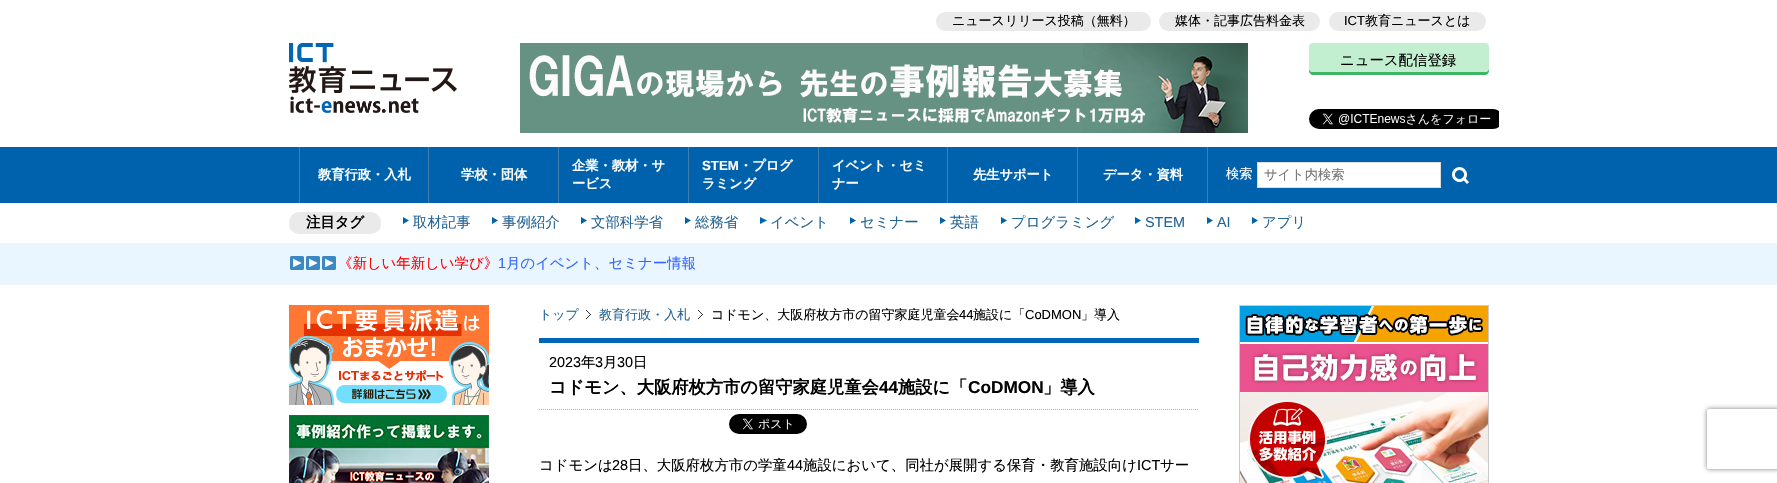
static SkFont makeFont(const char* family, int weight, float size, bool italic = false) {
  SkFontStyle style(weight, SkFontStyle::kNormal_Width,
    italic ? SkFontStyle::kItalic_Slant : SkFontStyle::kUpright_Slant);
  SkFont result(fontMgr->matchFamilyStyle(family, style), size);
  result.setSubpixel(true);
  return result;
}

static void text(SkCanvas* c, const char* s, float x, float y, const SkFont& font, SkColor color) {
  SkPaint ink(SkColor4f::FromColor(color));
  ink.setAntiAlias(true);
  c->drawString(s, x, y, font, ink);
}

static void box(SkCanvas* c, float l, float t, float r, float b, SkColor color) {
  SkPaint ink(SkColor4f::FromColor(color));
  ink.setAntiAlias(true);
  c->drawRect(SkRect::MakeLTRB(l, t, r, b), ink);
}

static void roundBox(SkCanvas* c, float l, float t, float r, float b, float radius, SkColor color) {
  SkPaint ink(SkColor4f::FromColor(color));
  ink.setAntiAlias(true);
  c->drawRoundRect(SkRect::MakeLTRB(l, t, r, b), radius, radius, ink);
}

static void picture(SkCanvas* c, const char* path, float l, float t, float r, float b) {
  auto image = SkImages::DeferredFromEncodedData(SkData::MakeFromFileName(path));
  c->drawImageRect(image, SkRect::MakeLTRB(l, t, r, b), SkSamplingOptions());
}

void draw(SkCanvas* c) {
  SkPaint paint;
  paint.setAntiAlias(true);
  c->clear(0xffffffff);
  picture(c, "img_01.png", 289, 43, 457, 113);
  roundBox(c, 936, 12, 1151, 31, 9.5f, 0xffeaeaea);
  SkFont face1 = makeFont("WenQuanYi Zen Hei", 500, 13);
  text(c, "ニュースリリース投稿（無料）", 952, 25, face1, 0xff000000);
  roundBox(c, 1159, 12, 1320, 31, 9.5f, 0xffeaeaea);
  text(c, "媒体・記事広告料金表", 1175, 25, face1, 0xff000000);
  roundBox(c, 1329, 12, 1486, 31, 9.5f, 0xffeaeaea);
  SkFont face2 = makeFont("Liberation Sans", 400, 13);
  text(c, "ICT", 1344, 25, face2, 0xff000000);
  text(c, "教育ニュースとは", 1365, 25, face1, 0xff000000);
  picture(c, "img_02.png", 520, 43, 1248, 133);
  paint.setColor(0xff41b567);
  c->drawPath(SkPathBuilder().moveTo(1309, 68).lineTo(1309, 71).cubicTo(1309, 73, 1311, 75, 1313, 75).lineTo(1485, 75).cubicTo(1487, 75, 1489, 73, 1489, 71).lineTo(1489, 68).cubicTo(1489, 70, 1487, 72, 1485, 72).lineTo(1313, 72).cubicTo(1311, 72, 1309, 70, 1309, 68).close().detach(), paint);
  roundBox(c, 1309, 43, 1489, 72, 4, 0xffc3efd1);
  SkFont face3 = makeFont("WenQuanYi Zen Hei", 500, 14.4f);
  text(c, "ニュース配信登録", 1340, 65, face3, 0xff000000);
  picture(c, "img_03.png", 1309, 109, 1499, 129);
  box(c, 0, 147, 1777, 203, 0xff0062ad);
  box(c, 299, 147, 300, 203, 0xff407eae);
  SkFont face4 = makeFont("WenQuanYi Zen Hei", 700, 13.25f);
  text(c, "教育行政・入札", 318, 179, face4, 0xffffffff);
  box(c, 428, 147, 429, 203, 0xff407eae);
  text(c, "学校・団体", 461, 179, face4, 0xffffffff);
  box(c, 558, 147, 559, 203, 0xff407eae);
  text(c, "企業・教材・サ", 572, 170, face4, 0xffffffff);
  text(c, "ービス", 572, 188, face4, 0xffffffff);
  box(c, 688, 147, 689, 203, 0xff407eae);
  SkFont face5 = makeFont("Liberation Sans", 700, 13.25f);
  text(c, "STEM", 702, 170, face5, 0xffffffff);
  text(c, "・プログ", 739, 170, face4, 0xffffffff);
  text(c, "ラミング", 702, 188, face4, 0xffffffff);
  box(c, 818, 147, 819, 203, 0xff407eae);
  text(c, "イベント・セミ", 832, 170, face4, 0xffffffff);
  text(c, "ナー", 832, 188, face4, 0xffffffff);
  box(c, 947, 147, 948, 203, 0xff407eae);
  text(c, "先生サポート", 973, 179, face4, 0xffffffff);
  box(c, 1077, 147, 1078, 203, 0xff407eae);
  text(c, "データ・資料", 1103, 179, face4, 0xffffffff);
  box(c, 1207, 147, 1208, 203, 0xff407eae);
  SkFont face6 = makeFont("WenQuanYi Zen Hei", 500, 13.25f);
  text(c, "検索", 1226, 178, face6, 0xffffffff);
  paint.setColor(0xffffffff);
  c->drawRect(SkRect::MakeLTRB(1257.5f, 162.5f, 1440.5f, 187.5f), paint);
  paint.setStyle(SkPaint::kStroke_Style);
  paint.setStrokeWidth(1);
  paint.setColor(0xffdddddd);
  c->drawRect(SkRect::MakeLTRB(1257.5f, 162.5f, 1440.5f, 187.5f), paint);
  text(c, "サイト内検索", 1264, 179, face6, 0xff757575);
  picture(c, "img_04.png", 1441, 162, 1479, 188);
  roundBox(c, 289, 212, 381, 234, 10, 0xffeaeaea);
  SkFont face7 = makeFont("WenQuanYi Zen Hei", 700, 14.4f);
  text(c, "注目タグ", 306, 227, face7, 0xff000000);
  picture(c, "img_05.png", 403, 217, 409, 224);
  text(c, "取材記事", 413, 227, face3, 0xff226396);
  picture(c, "img_05.png", 492, 217, 498, 224);
  text(c, "事例紹介", 502, 227, face3, 0xff226396);
  picture(c, "img_05.png", 581, 217, 587, 224);
  text(c, "文部科学省", 591, 227, face3, 0xff226396);
  picture(c, "img_05.png", 685, 217, 691, 224);
  text(c, "総務省", 695, 227, face3, 0xff226396);
  picture(c, "img_06.png", 760, 217, 767, 224);
  text(c, "イベント", 770, 227, face3, 0xff226396);
  picture(c, "img_05.png", 850, 217, 856, 224);
  text(c, "セミナー", 860, 227, face3, 0xff226396);
  picture(c, "img_05.png", 940, 217, 946, 224);
  text(c, "英語", 950, 227, face3, 0xff226396);
  picture(c, "img_05.png", 1001, 217, 1007, 224);
  text(c, "プログラミング", 1011, 227, face3, 0xff226396);
  picture(c, "img_05.png", 1135, 217, 1141, 224);
  SkFont face8 = makeFont("Liberation Sans", 400, 14.4f);
  text(c, "STEM", 1145, 227, face8, 0xff226396);
  picture(c, "img_05.png", 1207, 217, 1213, 224);
  text(c, "AI", 1217, 227, face8, 0xff226396);
  picture(c, "img_05.png", 1252, 217, 1258, 224);
  text(c, "アプリ", 1262, 227, face3, 0xff226396);
  box(c, 0, 243, 1777, 285, 0xffeaf6ff);
  picture(c, "img_07.png", 290, 256, 304, 270);
  picture(c, "img_07.png", 306, 256, 320, 270);
  picture(c, "img_07.png", 322, 256, 336, 270);
  text(c, "《新しい年新しい学び》", 338, 268, face3, 0xffff0000);
  text(c, "1", 498, 268, face8, 0xff3366ff);
  text(c, "月のイベント、セミナー情報", 506, 268, face3, 0xff3366ff);
  picture(c, "img_08.png", 289, 305, 489, 405);
  picture(c, "img_09.png", 289, 415, 489, 483);
  text(c, "トップ", 539, 319, face1, 0xff226396);
  picture(c, "img_10.png", 586, 310, 591, 319);
  text(c, "教育行政・入札", 599, 319, face1, 0xff226396);
  picture(c, "img_10.png", 698, 310, 703, 319);
  text(c, "コドモン、大阪府枚方市の留守家庭児童会", 711, 319, face1, 0xff000000);
  text(c, "44", 959, 319, face2, 0xff000000);
  text(c, "施設に「", 973, 319, face1, 0xff000000);
  text(c, "CoDMON", 1025, 319, face2, 0xff000000);
  text(c, "」導入", 1081, 319, face1, 0xff000000);
  box(c, 539, 338, 1199, 343, 0xff0066b5);
  paint.setColor(0xffb2b2b2);
  paint.setPathEffect(SkDashPathEffect::Make({{1, 1}}, 0));
  c->drawPath(SkPathBuilder().moveTo(539, 409.5f).lineTo(1199, 409.5f).detach(), paint);
  paint.setPathEffect(nullptr);
  text(c, "2023", 549, 367, face8, 0xff000000);
  text(c, "年", 581, 367, face3, 0xff000000);
  text(c, "3", 595, 367, face8, 0xff000000);
  text(c, "月", 603, 367, face3, 0xff000000);
  text(c, "30", 617, 367, face8, 0xff000000);
  text(c, "日", 633, 367, face3, 0xff000000);
  SkFont face9 = makeFont("WenQuanYi Zen Hei", 700, 17.25f);
  text(c, "コドモン、大阪府枚方市の留守家庭児童会", 549, 393, face9, 0xff000000);
  SkFont face10 = makeFont("Liberation Sans", 700, 17.25f);
  text(c, "44", 879, 393, face10, 0xff000000);
  text(c, "施設に「", 898, 393, face9, 0xff000000);
  text(c, "CoDMON", 968, 393, face10, 0xff000000);
  text(c, "」導入", 1043, 393, face9, 0xff000000);
  picture(c, "img_11.png", 729, 414, 807, 434);
  text(c, "コドモンは", 539, 470, face3, 0xff000000);
  text(c, "28", 612, 470, face8, 0xff000000);
  text(c, "日、大阪府枚方市の学童", 628, 470, face3, 0xff000000);
  text(c, "44", 787, 470, face8, 0xff000000);
  text(c, "施設において、同社が展開する保育・教育施設向け", 803, 470, face3, 0xff000000);
  text(c, "ICT", 1137, 470, face8, 0xff000000);
  text(c, "サー", 1160, 470, face3, 0xff000000);
  picture(c, "img_12.png", 1239, 305, 1489, 483);
  c->save();
  c->clipPath(SkPathBuilder(SkPathFillType::kEvenOdd).moveTo(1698, 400).lineTo(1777, 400).lineTo(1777, 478).lineTo(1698, 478).close().moveTo(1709, 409).lineTo(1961, 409).cubicTo(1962, 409, 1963, 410, 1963, 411).lineTo(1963, 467).cubicTo(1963, 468, 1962, 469, 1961, 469).lineTo(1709, 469).cubicTo(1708, 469, 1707, 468, 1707, 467).lineTo(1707, 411).cubicTo(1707, 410, 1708, 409, 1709, 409).close().detach(), true);
  paint.setStyle(SkPaint::kFill_Style);
  paint.setColor(0xff808080);
  paint.setMaskFilter(SkMaskFilter::MakeBlur(kNormal_SkBlurStyle, 2.5f));
  c->drawRoundRect(SkRect::MakeLTRB(1707, 409, 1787, 469), 2, 2, paint);
  paint.setMaskFilter(nullptr);
  c->restore();
}
